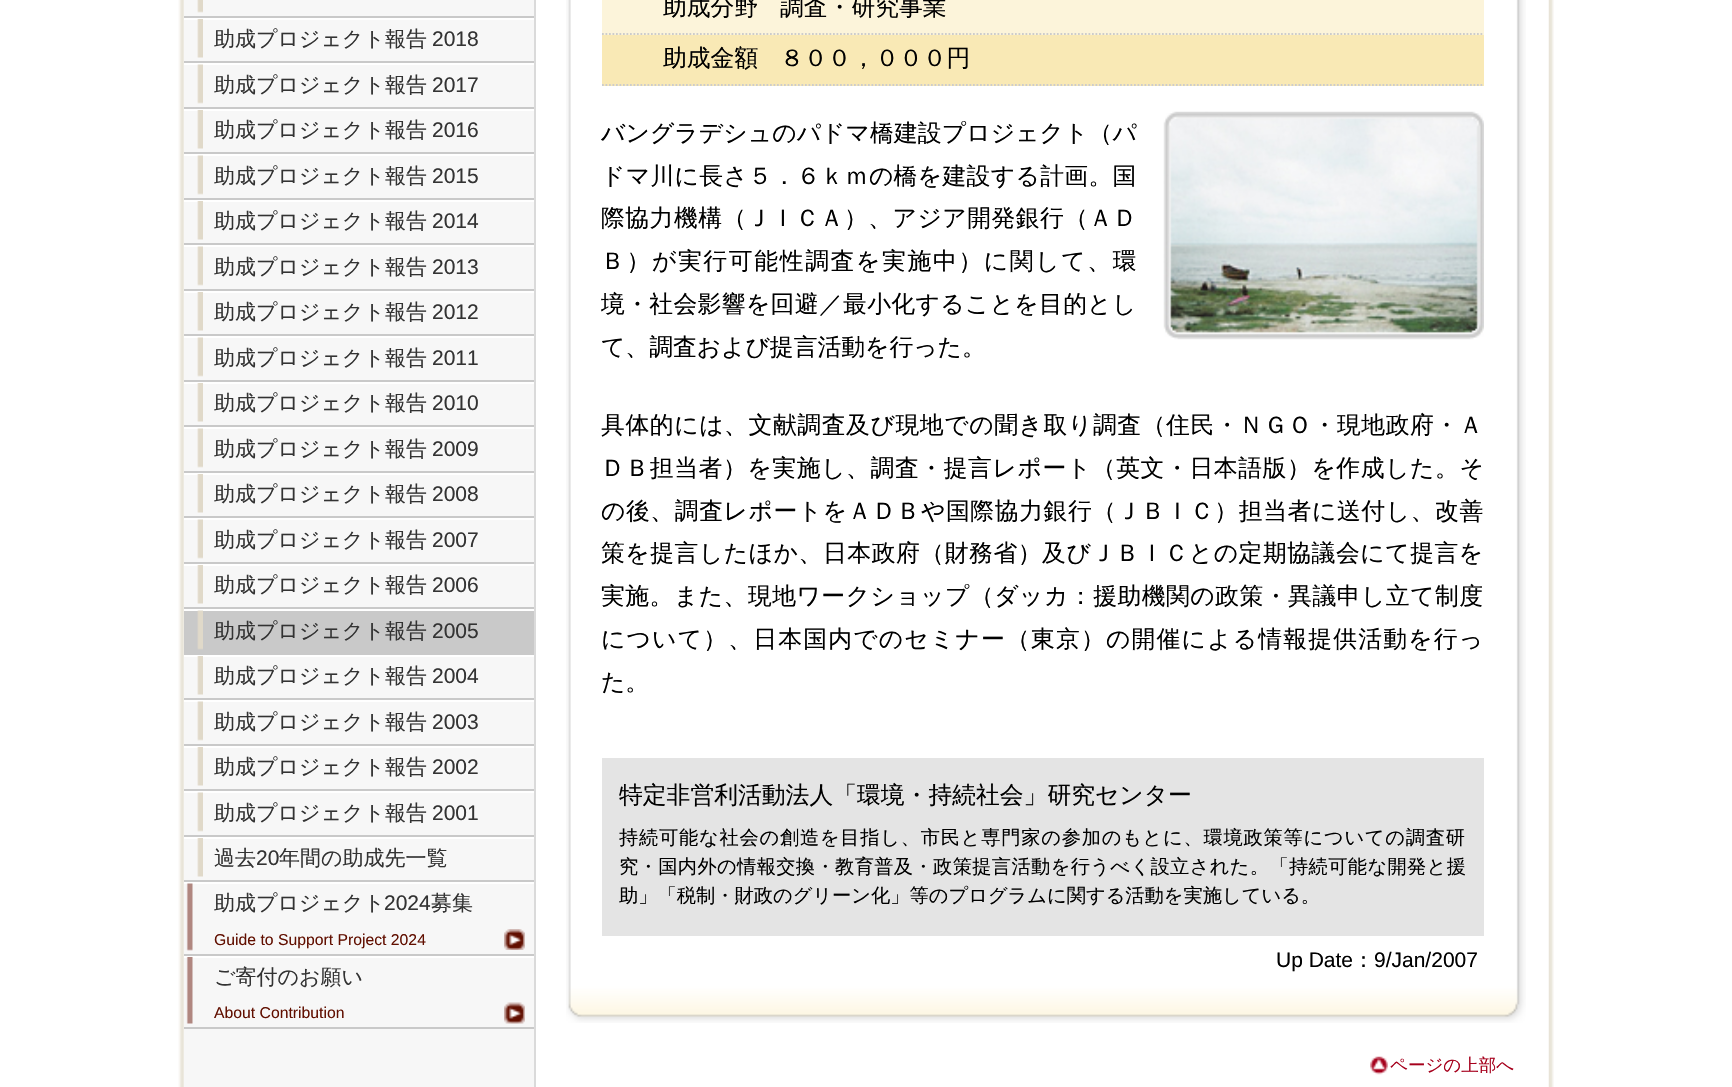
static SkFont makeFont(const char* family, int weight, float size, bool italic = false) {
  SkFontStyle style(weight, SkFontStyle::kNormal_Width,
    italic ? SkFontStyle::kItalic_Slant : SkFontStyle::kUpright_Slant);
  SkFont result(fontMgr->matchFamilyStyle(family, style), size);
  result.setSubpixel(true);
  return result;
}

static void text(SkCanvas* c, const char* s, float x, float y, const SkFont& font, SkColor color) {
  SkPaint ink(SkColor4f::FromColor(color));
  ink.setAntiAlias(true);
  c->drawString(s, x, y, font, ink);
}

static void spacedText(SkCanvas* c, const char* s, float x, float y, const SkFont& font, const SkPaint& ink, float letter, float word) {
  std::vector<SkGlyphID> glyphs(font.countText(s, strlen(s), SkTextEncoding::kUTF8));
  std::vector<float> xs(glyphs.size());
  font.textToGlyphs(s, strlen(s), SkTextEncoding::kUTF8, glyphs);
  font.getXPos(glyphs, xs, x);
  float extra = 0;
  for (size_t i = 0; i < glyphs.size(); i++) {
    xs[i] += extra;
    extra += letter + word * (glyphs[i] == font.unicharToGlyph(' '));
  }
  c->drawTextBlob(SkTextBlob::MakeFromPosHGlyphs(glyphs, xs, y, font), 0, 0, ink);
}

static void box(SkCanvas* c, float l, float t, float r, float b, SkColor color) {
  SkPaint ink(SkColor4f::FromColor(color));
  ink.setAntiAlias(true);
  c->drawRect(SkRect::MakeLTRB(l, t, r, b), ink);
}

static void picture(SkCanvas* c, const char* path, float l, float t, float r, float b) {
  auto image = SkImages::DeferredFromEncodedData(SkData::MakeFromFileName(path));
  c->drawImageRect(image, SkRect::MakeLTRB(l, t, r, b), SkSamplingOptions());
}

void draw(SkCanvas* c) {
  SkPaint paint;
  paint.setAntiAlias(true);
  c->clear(0xffffffff);
  picture(c, "img_01.png", 178, 0, 184, 1087);
  box(c, 184, 0, 534, 1087, 0xfff7f7f7);
  box(c, 184, 16, 534, 18, 0xffc9c9c9);
  picture(c, "img_02.png", 197, 0, 203, 13);
  box(c, 184, 18, 534, 20, 0xffffffff);
  box(c, 184, 61, 534, 63, 0xffc9c9c9);
  picture(c, "img_03.png", 197, 19, 203, 58);
  SkFont face1 = makeFont("WenQuanYi Zen Hei", 500, 21);
  text(c, "助成プロジェクト報告", 214, 46, face1, 0xff333333);
  SkFont face2 = makeFont("Liberation Sans", 400, 21);
  text(c, "2018", 432, 46, face2, 0xff333333);
  box(c, 184, 63, 534, 65, 0xffffffff);
  box(c, 184, 107, 534, 109, 0xffc9c9c9);
  picture(c, "img_04.png", 197, 64, 203, 104);
  text(c, "助成プロジェクト報告", 214, 92, face1, 0xff333333);
  text(c, "2017", 432, 92, face2, 0xff333333);
  box(c, 184, 109, 534, 111, 0xffffffff);
  box(c, 184, 152, 534, 154, 0xffc9c9c9);
  picture(c, "img_03.png", 197, 110, 203, 149);
  text(c, "助成プロジェクト報告", 214, 137, face1, 0xff333333);
  text(c, "2016", 432, 137, face2, 0xff333333);
  box(c, 184, 154, 534, 156, 0xffffffff);
  box(c, 184, 198, 534, 200, 0xffc9c9c9);
  picture(c, "img_04.png", 197, 155, 203, 195);
  text(c, "助成プロジェクト報告", 214, 183, face1, 0xff333333);
  text(c, "2015", 432, 183, face2, 0xff333333);
  box(c, 184, 200, 534, 202, 0xffffffff);
  box(c, 184, 243, 534, 245, 0xffc9c9c9);
  picture(c, "img_03.png", 197, 201, 203, 240);
  text(c, "助成プロジェクト報告", 214, 228, face1, 0xff333333);
  text(c, "2014", 432, 228, face2, 0xff333333);
  box(c, 184, 245, 534, 247, 0xffffffff);
  box(c, 184, 289, 534, 291, 0xffc9c9c9);
  picture(c, "img_04.png", 197, 246, 203, 286);
  text(c, "助成プロジェクト報告", 214, 274, face1, 0xff333333);
  text(c, "2013", 432, 274, face2, 0xff333333);
  box(c, 184, 291, 534, 293, 0xffffffff);
  box(c, 184, 334, 534, 336, 0xffc9c9c9);
  picture(c, "img_03.png", 197, 292, 203, 331);
  text(c, "助成プロジェクト報告", 214, 319, face1, 0xff333333);
  text(c, "2012", 432, 319, face2, 0xff333333);
  box(c, 184, 336, 534, 338, 0xffffffff);
  box(c, 184, 380, 534, 382, 0xffc9c9c9);
  picture(c, "img_04.png", 197, 337, 203, 377);
  text(c, "助成プロジェクト報告", 214, 365, face1, 0xff333333);
  text(c, "2011", 432, 365, face2, 0xff333333);
  box(c, 184, 382, 534, 384, 0xffffffff);
  box(c, 184, 425, 534, 427, 0xffc9c9c9);
  picture(c, "img_03.png", 197, 383, 203, 422);
  text(c, "助成プロジェクト報告", 214, 410, face1, 0xff333333);
  text(c, "2010", 432, 410, face2, 0xff333333);
  box(c, 184, 427, 534, 429, 0xffffffff);
  box(c, 184, 471, 534, 473, 0xffc9c9c9);
  picture(c, "img_04.png", 197, 428, 203, 468);
  text(c, "助成プロジェクト報告", 214, 456, face1, 0xff333333);
  text(c, "2009", 432, 456, face2, 0xff333333);
  box(c, 184, 473, 534, 475, 0xffffffff);
  box(c, 184, 516, 534, 518, 0xffc9c9c9);
  picture(c, "img_03.png", 197, 474, 203, 513);
  text(c, "助成プロジェクト報告", 214, 501, face1, 0xff333333);
  text(c, "2008", 432, 501, face2, 0xff333333);
  box(c, 184, 518, 534, 520, 0xffffffff);
  box(c, 184, 562, 534, 564, 0xffc9c9c9);
  picture(c, "img_04.png", 197, 519, 203, 559);
  text(c, "助成プロジェクト報告", 214, 547, face1, 0xff333333);
  text(c, "2007", 432, 547, face2, 0xff333333);
  box(c, 184, 564, 534, 566, 0xffffffff);
  box(c, 184, 607, 534, 609, 0xffc9c9c9);
  picture(c, "img_03.png", 197, 565, 203, 604);
  text(c, "助成プロジェクト報告", 214, 592, face1, 0xff333333);
  text(c, "2006", 432, 592, face2, 0xff333333);
  box(c, 184, 611, 534, 655, 0xffc9c9c9);
  box(c, 184, 609, 534, 611, 0xffffffff);
  picture(c, "img_05.png", 197, 610, 203, 650);
  text(c, "助成プロジェクト報告", 214, 638, face1, 0xff333333);
  text(c, "2005", 432, 638, face2, 0xff333333);
  box(c, 184, 655, 534, 657, 0xffffffff);
  box(c, 184, 698, 534, 700, 0xffc9c9c9);
  picture(c, "img_03.png", 197, 656, 203, 695);
  text(c, "助成プロジェクト報告", 214, 683, face1, 0xff333333);
  text(c, "2004", 432, 683, face2, 0xff333333);
  box(c, 184, 700, 534, 702, 0xffffffff);
  box(c, 184, 744, 534, 746, 0xffc9c9c9);
  picture(c, "img_04.png", 197, 701, 203, 741);
  text(c, "助成プロジェクト報告", 214, 729, face1, 0xff333333);
  text(c, "2003", 432, 729, face2, 0xff333333);
  box(c, 184, 746, 534, 748, 0xffffffff);
  box(c, 184, 789, 534, 791, 0xffc9c9c9);
  picture(c, "img_03.png", 197, 747, 203, 786);
  text(c, "助成プロジェクト報告", 214, 774, face1, 0xff333333);
  text(c, "2002", 432, 774, face2, 0xff333333);
  box(c, 184, 791, 534, 793, 0xffffffff);
  box(c, 184, 835, 534, 837, 0xffc9c9c9);
  picture(c, "img_04.png", 197, 792, 203, 832);
  text(c, "助成プロジェクト報告", 214, 820, face1, 0xff333333);
  text(c, "2001", 432, 820, face2, 0xff333333);
  box(c, 184, 837, 534, 839, 0xffffffff);
  box(c, 184, 880, 534, 882, 0xffc9c9c9);
  picture(c, "img_03.png", 197, 838, 203, 877);
  text(c, "過去", 214, 865, face1, 0xff333333);
  text(c, "20", 256, 865, face2, 0xff333333);
  text(c, "年間の助成先一覧", 279, 865, face1, 0xff333333);
  box(c, 184, 882, 534, 884, 0xffffffff);
  box(c, 184, 954, 534, 956, 0xffc9c9c9);
  picture(c, "img_06.png", 186, 883, 193, 951);
  text(c, "助成プロジェクト", 214, 910, face1, 0xff333333);
  text(c, "2024", 384, 910, face2, 0xff333333);
  text(c, "募集", 431, 910, face1, 0xff333333);
  SkFont face3 = makeFont("Liberation Sans", 400, 15.75f);
  text(c, "Guide to Support Project 2024", 214, 945, face3, 0xff610f00);
  picture(c, "img_07.png", 504, 929, 525, 950);
  box(c, 184, 956, 534, 958, 0xffffffff);
  box(c, 184, 1027, 534, 1029, 0xffc9c9c9);
  picture(c, "img_08.png", 186, 957, 193, 1024);
  text(c, "ご寄付のお願い", 214, 984, face1, 0xff333333);
  text(c, "About Contribution", 214, 1018, face3, 0xff610f00);
  picture(c, "img_09.png", 504, 1002, 525, 1024);
  box(c, 534, 0, 536, 1087, 0xffdadada);
  picture(c, "img_10.png", 566, 0, 1526, 978);
  box(c, 602, 0, 1484, 35, 0xfffcf4da);
  paint.setStyle(SkPaint::kStroke_Style);
  paint.setStrokeWidth(1.8f);
  paint.setColor(0xffcccccc);
  paint.setPathEffect(SkDashPathEffect::Make({{1.75f, 1.75f}}, 0));
  c->drawPath(SkPathBuilder().moveTo(602, 34).lineTo(763, 34).detach(), paint);
  paint.setPathEffect(nullptr);
  SkFont face4 = makeFont("WenQuanYi Zen Hei", 500, 23.8f);
  text(c, "助成分野", 663, 15, face4, 0xff000000);
  paint.setPathEffect(SkDashPathEffect::Make({{1.75f, 1.75f}}, 0));
  c->drawPath(SkPathBuilder().moveTo(763, 34).lineTo(1484, 34).detach(), paint);
  paint.setPathEffect(nullptr);
  text(c, "調査・研究事業", 780, 15, face4, 0xff000000);
  box(c, 602, 35, 1484, 86, 0xfff9e9b5);
  paint.setPathEffect(SkDashPathEffect::Make({{1.75f, 1.75f}}, 0));
  c->drawPath(SkPathBuilder().moveTo(602, 85).lineTo(763, 85).detach(), paint);
  paint.setPathEffect(nullptr);
  text(c, "助成金額", 663, 66, face4, 0xff000000);
  paint.setPathEffect(SkDashPathEffect::Make({{1.75f, 1.75f}}, 0));
  c->drawPath(SkPathBuilder().moveTo(763, 85).lineTo(1484, 85).detach(), paint);
  paint.setPathEffect(nullptr);
  text(c, "８００，０００円", 780, 66, face4, 0xff000000);
  paint.setStyle(SkPaint::kFill_Style);
  paint.setColor(0xff000000);
  spacedText(c, "バングラデシュのパドマ橋建設プロジェクト（パ", 601, 141, face4, paint, 0.1f, 0);
  picture(c, "img_11.png", 1163, 111, 1484, 340);
  spacedText(c, "ドマ川に長さ５．６ｋｍの橋を建設する計画。国", 601, 184, face4, paint, 0.35f, 0);
  spacedText(c, "際協力機構（ＪＩＣＡ）、アジア開発銀行（ＡＤ", 601, 226, face4, paint, 0.5f, 0);
  spacedText(c, "Ｂ）が実行可能性調査を実施中）に関して、環", 601, 269, face4, paint, 1.65f, 0);
  spacedText(c, "境・社会影響を回避／最小化することを目的とし", 601, 312, face4, paint, 0.35f, 0);
  text(c, "て、調査および提言活動を行った。", 601, 355, face4, 0xff000000);
  spacedText(c, "具体的には、文献調査及び現地での聞き取り調査（住民・ＮＧＯ・現地政府・Ａ", 601, 433, face4, paint, 0.6f, 0);
  spacedText(c, "ＤＢ担当者）を実施し、調査・提言レポート（英文・日本語版）を作成した。そ", 601, 476, face4, paint, 0.6f, 0);
  spacedText(c, "の後、調査レポートをＡＤＢや国際協力銀行（ＪＢＩＣ）担当者に送付し、改善", 601, 519, face4, paint, 0.6f, 0);
  spacedText(c, "策を提言したほか、日本政府（財務省）及びＪＢＩＣとの定期協議会にて提言を", 601, 561, face4, paint, 0.55f, 0);
  spacedText(c, "実施。また、現地ワークショップ（ダッカ：援助機関の政策・異議申し立て制度", 601, 604, face4, paint, 0.5f, 0);
  spacedText(c, "について）、日本国内でのセミナー（東京）の開催による情報提供活動を行っ", 601, 647, face4, paint, 1.2f, 0);
  text(c, "た。", 601, 690, face4, 0xff000000);
  box(c, 602, 758, 1484, 936, 0xffe4e4e4);
  text(c, "特定非営利活動法人「環境・持続社会」研究センター", 619, 803, face4, 0xff000000);
  SkFont face5 = makeFont("WenQuanYi Zen Hei", 500, 19.25f);
  spacedText(c, "持続可能な社会の創造を目指し、市民と専門家の参加のもとに、環境政策等についての調査研", 619, 844, face5, paint, 0.75f, 0);
  spacedText(c, "究・国内外の情報交換・教育普及・政策提言活動を行うべく設立された。「持続可能な開発と援", 619, 873, face5, paint, 0.35f, 0);
  text(c, "助」「税制・財政のグリーン化」等のプログラムに関する活動を実施している。", 619, 902, face5, 0xff000000);
  text(c, "Up Date", 1276, 967, face2, 0xff000000);
  text(c, "：", 1353, 967, face1, 0xff000000);
  text(c, "9/Jan/2007", 1374, 967, face2, 0xff000000);
  picture(c, "img_12.png", 566, 978, 1526, 1023);
  picture(c, "img_13.png", 1370, 1056, 1388, 1075);
  SkFont face6 = makeFont("WenQuanYi Zen Hei", 500, 17.5f);
  text(c, "ページの上部へ", 1390, 1071, face6, 0xffa6001c);
  picture(c, "img_14.png", 1548, 0, 1554, 1087);
}
